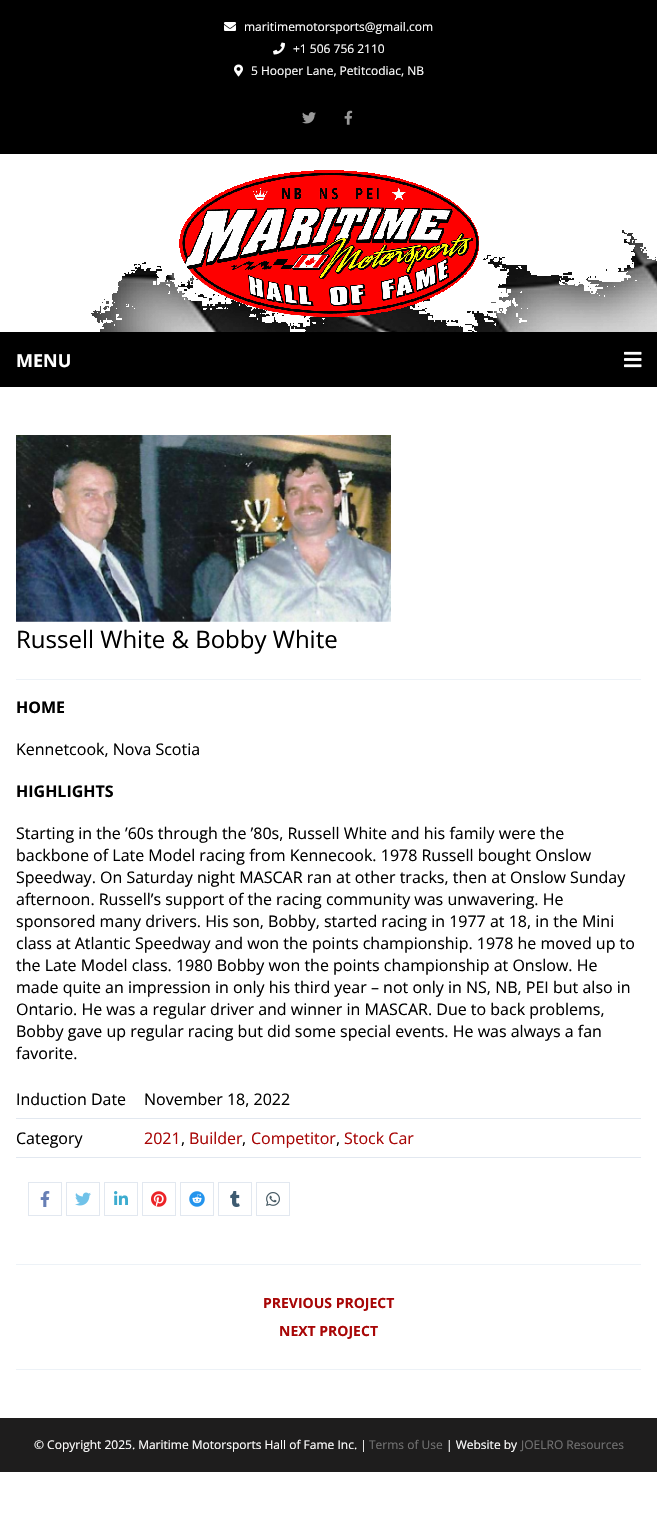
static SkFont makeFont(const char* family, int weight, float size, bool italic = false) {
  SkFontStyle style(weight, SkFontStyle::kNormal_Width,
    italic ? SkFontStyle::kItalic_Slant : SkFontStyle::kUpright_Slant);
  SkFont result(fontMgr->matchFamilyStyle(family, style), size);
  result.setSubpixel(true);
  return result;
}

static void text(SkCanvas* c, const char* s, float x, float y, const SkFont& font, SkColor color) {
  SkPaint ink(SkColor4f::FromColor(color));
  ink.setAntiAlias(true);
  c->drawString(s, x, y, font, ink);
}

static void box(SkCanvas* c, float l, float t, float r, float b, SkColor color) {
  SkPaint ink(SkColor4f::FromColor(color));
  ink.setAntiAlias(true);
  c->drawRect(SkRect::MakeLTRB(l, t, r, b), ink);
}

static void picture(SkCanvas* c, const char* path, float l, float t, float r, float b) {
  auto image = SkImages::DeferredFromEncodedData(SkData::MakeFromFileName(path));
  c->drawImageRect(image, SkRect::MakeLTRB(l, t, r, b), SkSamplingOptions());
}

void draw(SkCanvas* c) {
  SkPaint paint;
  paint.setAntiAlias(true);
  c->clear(0xffffffff);
  box(c, 0, 333, 657, 387, 0xff000000);
  picture(c, "img_08.png", 624, 351, 642, 368);
  c->save();
  c->clipRect(SkRect::MakeLTRB(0, 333, 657, 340));
  paint.setColor(0x1a000000);
  paint.setMaskFilter(SkMaskFilter::MakeBlur(kNormal_SkBlurStyle, 7.5f));
  c->drawRect(SkRect::MakeLTRB(0, 156, 657, 334), paint);
  paint.setMaskFilter(nullptr);
  c->restore();
  box(c, 0, 0, 657, 154, 0xff000000);
  box(c, 0, 154, 657, 155, 0xffffffff);
  picture(c, "img_01.png", 224, 22, 236, 31);
  SkFont face1 = makeFont("Open Sans", 400, 12);
  text(c, "maritimemotorsports@gmail.com", 244, 31, face1, 0xffffffff);
  picture(c, "img_02.png", 273, 42, 285, 55);
  text(c, "+1 506 756 2110", 293, 53, face1, 0xffffffff);
  picture(c, "img_03.png", 234, 64, 243, 77);
  text(c, "5 Hooper Lane, Petitcodiac, NB", 251, 75, face1, 0xffffffff);
  picture(c, "img_04.png", 302, 112, 316, 124);
  picture(c, "img_05.png", 344, 110, 353, 125);
  picture(c, "img_06.png", 91, 230, 657, 332);
  box(c, 0, 332, 657, 333, 0xff000000);
  picture(c, "img_07.png", 179, 170, 479, 317);
  SkFont face2 = makeFont("Open Sans", 700, 18);
  text(c, "MENU", 16, 367, face2, 0xffffffff);
  picture(c, "img_09.png", 16, 435, 391, 622);
  box(c, 16, 679, 641, 680, 0xffedf2f7);
  SkFont face3 = makeFont("Open Sans", 400, 24);
  text(c, "Russell White & Bobby White", 16, 648, face3, 0xff000000);
  SkFont face4 = makeFont("Open Sans", 700, 16);
  text(c, "HOME", 16, 713, face4, 0xff000000);
  SkFont face5 = makeFont("Open Sans", 400, 16);
  text(c, "Kennetcook, Nova Scotia", 16, 755, face5, 0xff000000);
  text(c, "HIGHLIGHTS", 16, 797, face4, 0xff000000);
  text(c, "Starting in the ’60s through the ’80s, Russell White and his family were the", 16, 839, face5, 0xff000000);
  text(c, "backbone of Late Model racing from Kennecook. 1978 Russell bought Onslow", 16, 861, face5, 0xff000000);
  text(c, "Speedway. On Saturday night MASCAR ran at other tracks, then at Onslow Sunday", 16, 883, face5, 0xff000000);
  text(c, "afternoon. Russell’s support of the racing community was unwavering. He", 16, 905, face5, 0xff000000);
  text(c, "sponsored many drivers. His son, Bobby, started racing in 1977 at 18, in the Mini", 16, 927, face5, 0xff000000);
  text(c, "class at Atlantic Speedway and won the points championship. 1978 he moved up to", 16, 949, face5, 0xff000000);
  text(c, "the Late Model class. 1980 Bobby won the points championship at Onslow. He", 16, 971, face5, 0xff000000);
  text(c, "made quite an impression in only his third year – not only in NS, NB, PEI but also in", 16, 993, face5, 0xff000000);
  text(c, "Ontario. He was a regular driver and winner in MASCAR. Due to back problems,", 16, 1015, face5, 0xff000000);
  text(c, "Bobby gave up regular racing but did some special events. He was always a fan", 16, 1037, face5, 0xff000000);
  text(c, "favorite.", 16, 1059, face5, 0xff000000);
  box(c, 16, 1118, 641, 1119, 0xffe2e8f0);
  text(c, "Induction Date", 16, 1105, face5, 0xff000000);
  text(c, "November 18, 2022", 144, 1105, face5, 0xff000000);
  box(c, 16, 1157, 641, 1158, 0xffe2e8f0);
  text(c, "Category", 16, 1144, face5, 0xff000000);
  text(c, "2021", 144, 1144, face5, 0xffa80606);
  text(c, ",", 181, 1144, face5, 0xff000000);
  text(c, "Builder", 189, 1144, face5, 0xffa80606);
  text(c, ",", 242, 1144, face5, 0xff000000);
  text(c, "Competitor", 251, 1144, face5, 0xffa80606);
  text(c, ",", 336, 1144, face5, 0xff000000);
  text(c, "Stock Car", 344, 1144, face5, 0xffa80606);
  paint.setStyle(SkPaint::kStroke_Style);
  paint.setStrokeWidth(1);
  paint.setColor(0xffe2e8f0);
  c->drawRect(SkRect::MakeLTRB(28.5f, 1182.5f, 61.5f, 1215.5f), paint);
  picture(c, "img_10.png", 40, 1191, 50, 1207);
  c->drawRect(SkRect::MakeLTRB(66.5f, 1182.5f, 99.5f, 1215.5f), paint);
  picture(c, "img_11.png", 75, 1192, 91, 1206);
  c->drawRect(SkRect::MakeLTRB(104.5f, 1182.5f, 137.5f, 1215.5f), paint);
  picture(c, "img_12.png", 114, 1191, 128, 1205);
  c->drawRect(SkRect::MakeLTRB(142.5f, 1182.5f, 175.5f, 1215.5f), paint);
  picture(c, "img_13.png", 151, 1191, 167, 1207);
  c->drawRect(SkRect::MakeLTRB(180.5f, 1182.5f, 213.5f, 1215.5f), paint);
  picture(c, "img_14.png", 189, 1191, 205, 1207);
  c->drawRect(SkRect::MakeLTRB(218.5f, 1182.5f, 251.5f, 1215.5f), paint);
  picture(c, "img_15.png", 230, 1191, 240, 1207);
  c->drawRect(SkRect::MakeLTRB(256.5f, 1182.5f, 289.5f, 1215.5f), paint);
  picture(c, "img_16.png", 266, 1192, 280, 1206);
  box(c, 16, 1264, 641, 1265, 0xffedf2f7);
  box(c, 16, 1369, 641, 1370, 0xffedf2f7);
  SkFont face6 = makeFont("Open Sans", 700, 14);
  text(c, "PREVIOUS PROJECT", 263, 1308, face6, 0xffa80606);
  text(c, "NEXT PROJECT", 279, 1336, face6, 0xffa80606);
  box(c, 0, 1418, 657, 1472, 0xff1e1d1d);
  text(c, "© Copyright 2025. Maritime Motorsports Hall of Fame Inc. |", 34, 1449, face1, 0xffffffff);
  text(c, "Terms of Use", 369, 1449, face1, 0xff727272);
  text(c, "| Website by", 446, 1449, face1, 0xffffffff);
  text(c, "JOELRO Resources", 521, 1449, face1, 0xff727272);
}
